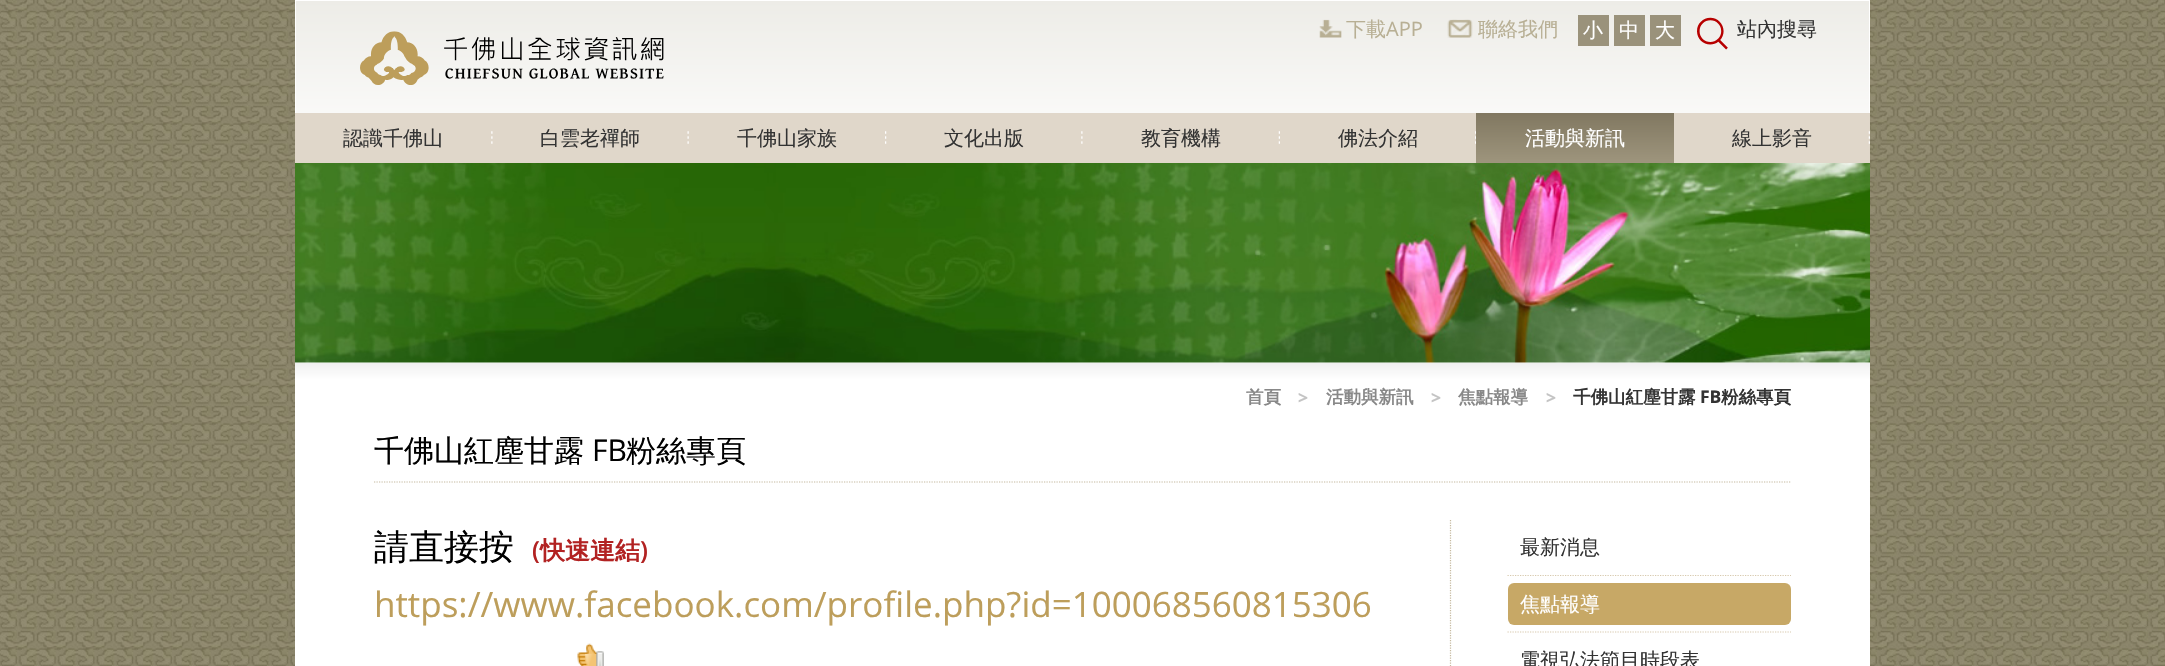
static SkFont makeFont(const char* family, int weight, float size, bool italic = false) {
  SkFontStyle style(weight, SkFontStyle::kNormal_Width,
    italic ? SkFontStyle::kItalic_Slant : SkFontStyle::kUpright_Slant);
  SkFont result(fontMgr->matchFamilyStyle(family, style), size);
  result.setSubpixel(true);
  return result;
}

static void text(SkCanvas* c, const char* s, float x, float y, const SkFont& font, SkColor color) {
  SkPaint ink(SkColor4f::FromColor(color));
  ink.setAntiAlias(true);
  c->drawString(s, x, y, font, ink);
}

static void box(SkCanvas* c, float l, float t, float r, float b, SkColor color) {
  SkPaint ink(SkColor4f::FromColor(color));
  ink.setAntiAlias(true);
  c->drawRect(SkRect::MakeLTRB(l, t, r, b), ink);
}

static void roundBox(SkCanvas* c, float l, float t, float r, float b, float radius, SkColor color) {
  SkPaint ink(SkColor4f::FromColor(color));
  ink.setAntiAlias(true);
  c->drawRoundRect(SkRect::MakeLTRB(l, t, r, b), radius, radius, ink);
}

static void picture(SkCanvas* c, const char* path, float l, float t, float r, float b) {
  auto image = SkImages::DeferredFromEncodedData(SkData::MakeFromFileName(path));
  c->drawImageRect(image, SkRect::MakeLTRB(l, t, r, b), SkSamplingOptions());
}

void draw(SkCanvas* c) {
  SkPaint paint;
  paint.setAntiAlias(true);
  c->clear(0xffffffff);
  picture(c, "img_01.png", 0, 0, 2165, 666);
  box(c, 295, 362, 1870, 363, 0xffffffff);
  {
    const SkColor colors[] = {0xffedece7, 0xffffffff};
    const float stops[] = {0, 1};
    const SkPoint ends[] = {{1083, -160}, {1083, 1.3f}};
    paint.setShader(SkGradientShader::MakeLinear(ends, colors, stops, 2, SkTileMode::kClamp));
    paint.setAlpha(255);
  }
  c->drawRect(SkRect::MakeLTRB(295, 0, 1870, 1), paint);
  {
    const SkColor colors[] = {0xffedece7, 0xffffffff};
    const float stops[] = {0, 1};
    const SkPoint ends[] = {{1083, 1.2f}, {1083, 163}};
    paint.setShader(SkGradientShader::MakeLinear(ends, colors, stops, 2, SkTileMode::kClamp));
    paint.setAlpha(255);
  }
  c->drawRect(SkRect::MakeLTRB(296, 1, 1869, 113), paint);
  box(c, 1869, 0, 1870, 113, 0xffffffff);
  box(c, 295, 0, 296, 113, 0xffffffff);
  picture(c, "img_02.png", 360, 31, 664, 85);
  picture(c, "img_03.png", 1319, 19, 1342, 38);
  SkFont face1 = makeFont("WenQuanYi Zen Hei", 500, 20);
  text(c, "下載", 1346, 36, face1, 0xffb8af94);
  SkFont face2 = makeFont("Open Sans", 400, 20);
  text(c, "APP", 1386, 36, face2, 0xffb8af94);
  picture(c, "img_04.png", 1447, 19, 1473, 38);
  text(c, "聯絡我們", 1478, 36, face1, 0xffb8af94);
  box(c, 1578, 15, 1609, 46, 0xff9a927b);
  text(c, "小", 1583, 37, face1, 0xffffffff);
  box(c, 1614, 15, 1645, 46, 0xff9a927b);
  text(c, "中", 1619, 37, face1, 0xffffffff);
  box(c, 1650, 15, 1681, 46, 0xff9a927b);
  text(c, "大", 1655, 37, face1, 0xffffffff);
  picture(c, "img_05.png", 1697, 17, 1728, 50);
  text(c, "站內搜尋", 1737, 36, face1, 0xff333333);
  picture(c, "img_06.png", 295, 163, 1870, 363);
  {
    const SkColor colors[] = {0xffefefef, 0xffffffff};
    const float stops[] = {0, 0.02f};
    const SkPoint ends[] = {{1083, 362}, {1083, 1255}};
    paint.setShader(SkGradientShader::MakeLinear(ends, colors, stops, 2, SkTileMode::kClamp));
    paint.setAlpha(255);
  }
  c->drawRect(SkRect::MakeLTRB(295, 363, 1870, 666), paint);
  SkFont face3 = makeFont("WenQuanYi Zen Hei", 700, 17.5f);
  text(c, "首頁", 1246, 403, face3, 0xff888888);
  SkFont face4 = makeFont("Open Sans", 700, 17.5f);
  text(c, ">", 1298, 404, face4, 0xffc4c4c4);
  text(c, "活動與新訊", 1326, 403, face3, 0xff888888);
  text(c, ">", 1431, 404, face4, 0xffc4c4c4);
  text(c, "焦點報導", 1458, 403, face3, 0xff888888);
  text(c, ">", 1546, 404, face4, 0xffc4c4c4);
  text(c, "千佛山紅塵甘露", 1573, 403, face3, 0xff333333);
  text(c, "FB", 1700, 403, face4, 0xff333333);
  text(c, "粉絲專頁", 1721, 403, face3, 0xff333333);
  paint.setStyle(SkPaint::kStroke_Style);
  paint.setStrokeWidth(1.2f);
  paint.setShader(nullptr);
  paint.setColor(0xffc6baa0);
  paint.setPathEffect(SkDashPathEffect::Make({{1.25f, 1.25f}}, 0));
  c->drawPath(SkPathBuilder().moveTo(374, 482).lineTo(1791, 482).detach(), paint);
  paint.setPathEffect(nullptr);
  SkFont face5 = makeFont("WenQuanYi Zen Hei", 500, 30);
  text(c, "千佛山紅塵甘露", 374, 461, face5, 0xff000000);
  SkFont face6 = makeFont("Open Sans", 400, 30);
  text(c, "FB", 592, 461, face6, 0xff000000);
  text(c, "粉絲專頁", 626, 461, face5, 0xff000000);
  paint.setPathEffect(SkDashPathEffect::Make({{1.25f, 1.25f}}, 0));
  c->drawPath(SkPathBuilder().moveTo(1450.5f, 520).lineTo(1450.5f, 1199).detach(), paint);
  paint.setPathEffect(nullptr);
  SkFont face7 = makeFont("WenQuanYi Zen Hei", 500, 35);
  text(c, "請直接按", 374, 559, face7, 0xff000000);
  SkFont face8 = makeFont("Open Sans", 600, 25);
  text(c, "(", 532, 559, face8, 0xffb22222);
  SkFont face9 = makeFont("WenQuanYi Zen Hei", 700, 25);
  text(c, "快速連結", 540, 559, face9, 0xffb22222);
  text(c, ")", 640, 559, face8, 0xffb22222);
  SkFont face10 = makeFont("Open Sans", 400, 35);
  text(c, "https://www.facebook.com/profile.php?id=100068560815306", 374, 617, face10, 0xffbd9e5b);
  picture(c, "img_07.png", 577, 643, 604, 666);
  paint.setColor(0xffd7c9ad);
  paint.setPathEffect(SkDashPathEffect::Make({{1.25f, 1.25f}}, 0));
  c->drawPath(SkPathBuilder().moveTo(1507.5f, 575.5f).lineTo(1791, 575.5f).detach(), paint);
  paint.setPathEffect(nullptr);
  text(c, "最新消息", 1520, 554, face1, 0xff333333);
  paint.setPathEffect(SkDashPathEffect::Make({{1.25f, 1.25f}}, 0));
  c->drawPath(SkPathBuilder().moveTo(1507.5f, 632).lineTo(1791, 632).detach(), paint);
  paint.setPathEffect(nullptr);
  roundBox(c, 1508, 583, 1791, 625, 6, 0xffc7a866);
  text(c, "焦點報導", 1520, 611, face1, 0xffffffff);
  text(c, "電視弘法節目時段表", 1520, 667, face1, 0xff333333);
  box(c, 295, 113, 1870, 163, 0xffe0d7ca);
  picture(c, "img_08.png", 491, 131, 493, 144);
  text(c, "認識千佛山", 343, 145, face1, 0xff333333);
  picture(c, "img_09.png", 687, 131, 689, 144);
  text(c, "白雲老禪師", 540, 145, face1, 0xff333333);
  picture(c, "img_10.png", 885, 131, 887, 144);
  text(c, "千佛山家族", 737, 145, face1, 0xff333333);
  picture(c, "img_08.png", 1081, 131, 1083, 144);
  text(c, "文化出版", 944, 145, face1, 0xff333333);
  picture(c, "img_11.png", 1278, 131, 1280, 144);
  text(c, "教育機構", 1141, 145, face1, 0xff333333);
  picture(c, "img_12.png", 1475, 131, 1476, 144);
  text(c, "佛法介紹", 1338, 145, face1, 0xff333333);
  paint.setStyle(SkPaint::kFill_Style);
  {
    const SkColor colors[] = {0xff807760, 0xff9e957d};
    const float stops[] = {0, 1};
    const SkPoint ends[] = {{1575, 112}, {1575, 163}};
    paint.setShader(SkGradientShader::MakeLinear(ends, colors, stops, 2, SkTileMode::kClamp));
    paint.setAlpha(255);
  }
  c->drawRect(SkRect::MakeLTRB(1476, 113, 1674, 163), paint);
  text(c, "活動與新訊", 1525, 145, face1, 0xffffffff);
  picture(c, "img_11.png", 1868, 131, 1870, 144);
  text(c, "線上影音", 1732, 145, face1, 0xff333333);
}
